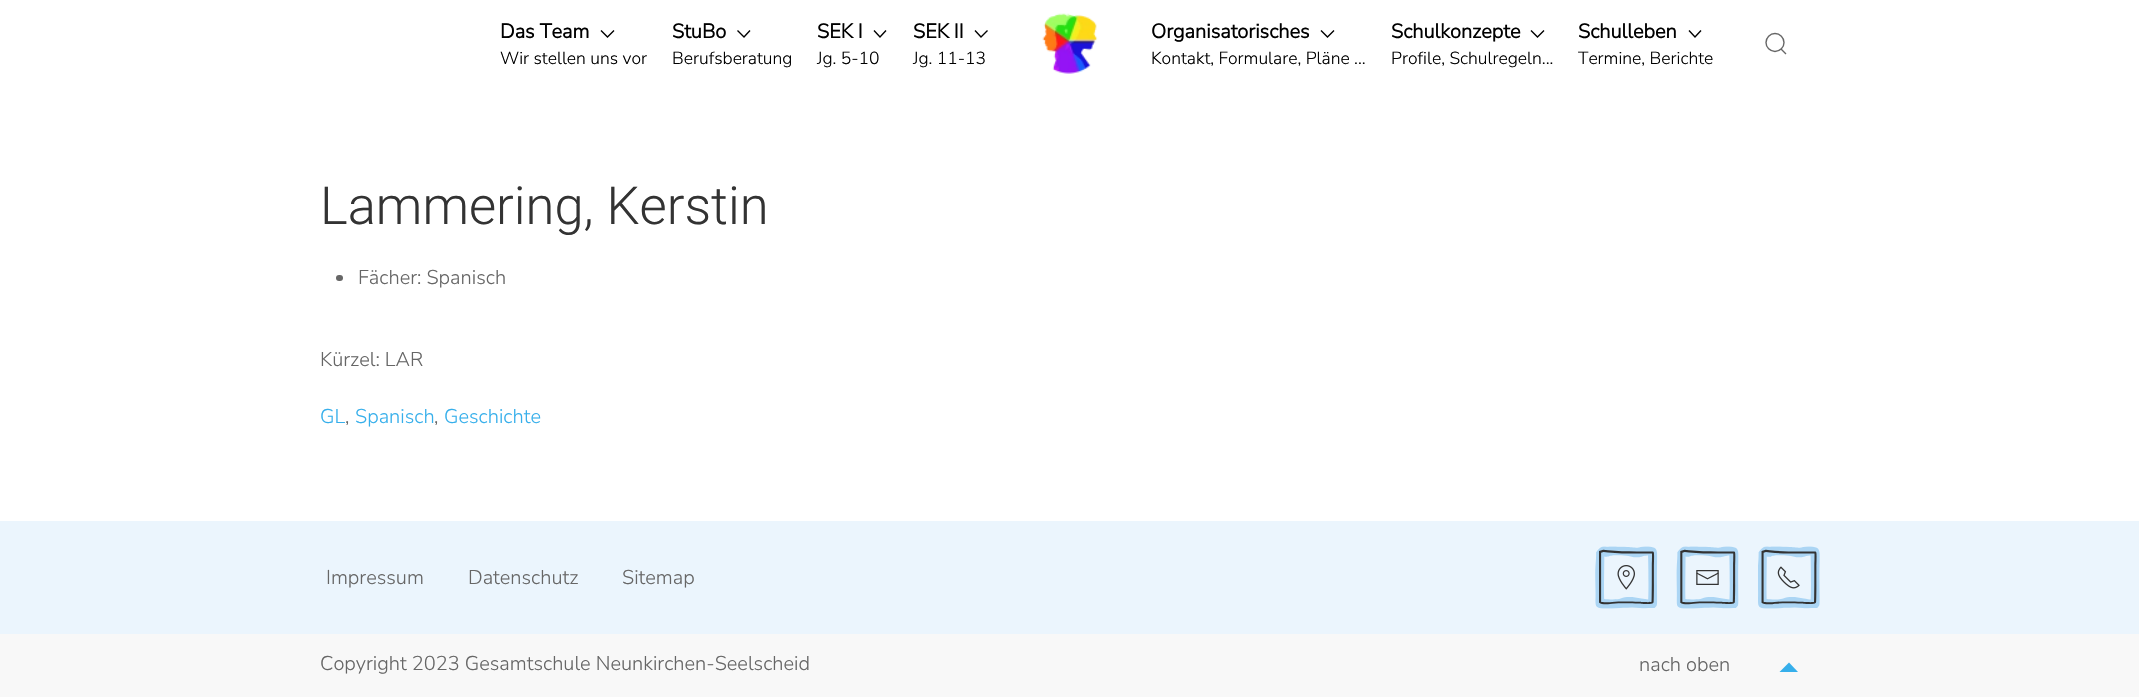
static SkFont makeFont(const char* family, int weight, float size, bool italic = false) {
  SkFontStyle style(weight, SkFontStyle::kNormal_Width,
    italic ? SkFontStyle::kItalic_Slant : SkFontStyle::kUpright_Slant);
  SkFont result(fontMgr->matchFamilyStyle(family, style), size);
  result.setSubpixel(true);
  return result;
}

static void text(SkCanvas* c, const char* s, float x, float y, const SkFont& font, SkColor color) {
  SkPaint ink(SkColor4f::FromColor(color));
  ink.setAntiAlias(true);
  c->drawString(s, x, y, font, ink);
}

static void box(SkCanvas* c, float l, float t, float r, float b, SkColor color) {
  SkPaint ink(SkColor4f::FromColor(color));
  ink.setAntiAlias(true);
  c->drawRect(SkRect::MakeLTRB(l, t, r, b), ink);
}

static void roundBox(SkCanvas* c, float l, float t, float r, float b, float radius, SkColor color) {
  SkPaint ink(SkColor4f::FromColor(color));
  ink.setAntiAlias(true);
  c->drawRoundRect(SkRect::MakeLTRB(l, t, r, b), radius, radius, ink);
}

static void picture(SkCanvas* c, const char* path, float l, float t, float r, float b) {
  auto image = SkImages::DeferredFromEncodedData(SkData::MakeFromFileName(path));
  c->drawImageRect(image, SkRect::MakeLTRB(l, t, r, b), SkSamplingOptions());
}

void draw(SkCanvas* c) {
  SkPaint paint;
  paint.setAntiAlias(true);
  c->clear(0xffffffff);
  SkFont face1 = makeFont("Nunito Sans", 700, 20);
  text(c, "Das Team", 500, 38, face1, 0xff000000);
  paint.setStyle(SkPaint::kStroke_Style);
  paint.setStrokeWidth(1.4f);
  paint.setColor(0xff000000);
  c->drawPath(SkPathBuilder().moveTo(601, 30.5f).lineTo(607.5f, 37).lineTo(614, 30.5f).detach(), paint);
  SkFont face2 = makeFont("Nunito Sans", 200, 17.5f);
  text(c, "Wir stellen uns vor", 500, 64, face2, 0xff000000);
  text(c, "StuBo", 672, 38, face1, 0xff000000);
  c->drawPath(SkPathBuilder().moveTo(737.5f, 30.5f).lineTo(744, 37).lineTo(750, 30.5f).detach(), paint);
  text(c, "Berufsberatung", 672, 64, face2, 0xff000000);
  text(c, "SEK I", 817, 38, face1, 0xff000000);
  c->drawPath(SkPathBuilder().moveTo(874, 30.5f).lineTo(880, 37).lineTo(886, 30.5f).detach(), paint);
  text(c, "Jg. 5-10", 817, 64, face2, 0xff000000);
  text(c, "SEK II", 913, 38, face1, 0xff000000);
  c->drawPath(SkPathBuilder().moveTo(975, 30.5f).lineTo(981, 37).lineTo(987.5f, 30.5f).detach(), paint);
  text(c, "Jg. 11-13", 913, 64, face2, 0xff000000);
  picture(c, "img_01.png", 1042, 13, 1098, 74);
  text(c, "Organisatorisches", 1151, 38, face1, 0xff000000);
  c->drawPath(SkPathBuilder().moveTo(1321, 30.5f).lineTo(1327.5f, 37).lineTo(1334, 30.5f).detach(), paint);
  text(c, "Kontakt, Formulare, Pläne ...", 1151, 64, face2, 0xff000000);
  text(c, "Schulkonzepte", 1391, 38, face1, 0xff000000);
  c->drawPath(SkPathBuilder().moveTo(1531, 30.5f).lineTo(1537.5f, 37).lineTo(1544, 30.5f).detach(), paint);
  text(c, "Profile, Schulregeln...", 1391, 64, face2, 0xff000000);
  text(c, "Schulleben", 1578, 38, face1, 0xff000000);
  c->drawPath(SkPathBuilder().moveTo(1689, 30.5f).lineTo(1695, 37).lineTo(1701, 30.5f).detach(), paint);
  text(c, "Termine, Berichte", 1578, 64, face2, 0xff000000);
  paint.setColor(0xff666666);
  c->drawCircle(1775, 42.5f, 9, paint);
  c->drawPath(SkPathBuilder().moveTo(1781, 49).lineTo(1786, 54).close().detach(), paint);
  SkFont face3 = makeFont("Roboto", 300, 52.5f);
  text(c, "Lammering, Kerstin", 320, 224, face3, 0xff333333);
  roundBox(c, 336, 275, 343, 281, 3, 0xff666666);
  SkFont face4 = makeFont("Nunito Sans", 200, 20);
  text(c, "Fächer: Spanisch", 358, 284, face4, 0xff666666);
  text(c, "Kürzel: LAR", 320, 366, face4, 0xff666666);
  text(c, "GL", 320, 423, face4, 0xff36afeb);
  text(c, ",", 345, 423, face4, 0xff666666);
  text(c, "Spanisch", 355, 423, face4, 0xff36afeb);
  text(c, ",", 434, 423, face4, 0xff666666);
  text(c, "Geschichte", 444, 423, face4, 0xff36afeb);
  box(c, 0, 521, 2139, 634, 0xffebf5fd);
  text(c, "Impressum", 326, 584, face4, 0xff666666);
  text(c, "Datenschutz", 468, 584, face4, 0xff666666);
  text(c, "Sitemap", 622, 584, face4, 0xff666666);
  picture(c, "img_02.png", 1595, 546, 1658, 609);
  picture(c, "img_03.png", 1617, 565, 1635, 590);
  picture(c, "img_04.png", 1676, 546, 1739, 609);
  picture(c, "img_05.png", 1696, 570, 1719, 585);
  picture(c, "img_06.png", 1758, 546, 1820, 609);
  picture(c, "img_07.png", 1777, 566, 1800, 589);
  box(c, 0, 634, 2139, 697, 0xfff8f8f8);
  text(c, "Copyright 2023 Gesamtschule Neunkirchen-Seelscheid", 320, 670, face4, 0xff666666);
  text(c, "nach oben", 1639, 671, face4, 0xff666666);
  paint.setStyle(SkPaint::kFill_Style);
  paint.setColor(0xff36afeb);
  c->drawPath(SkPathBuilder().moveTo(1779.5f, 672).lineTo(1789, 662.5f).lineTo(1798, 672).close().detach(), paint);
}
